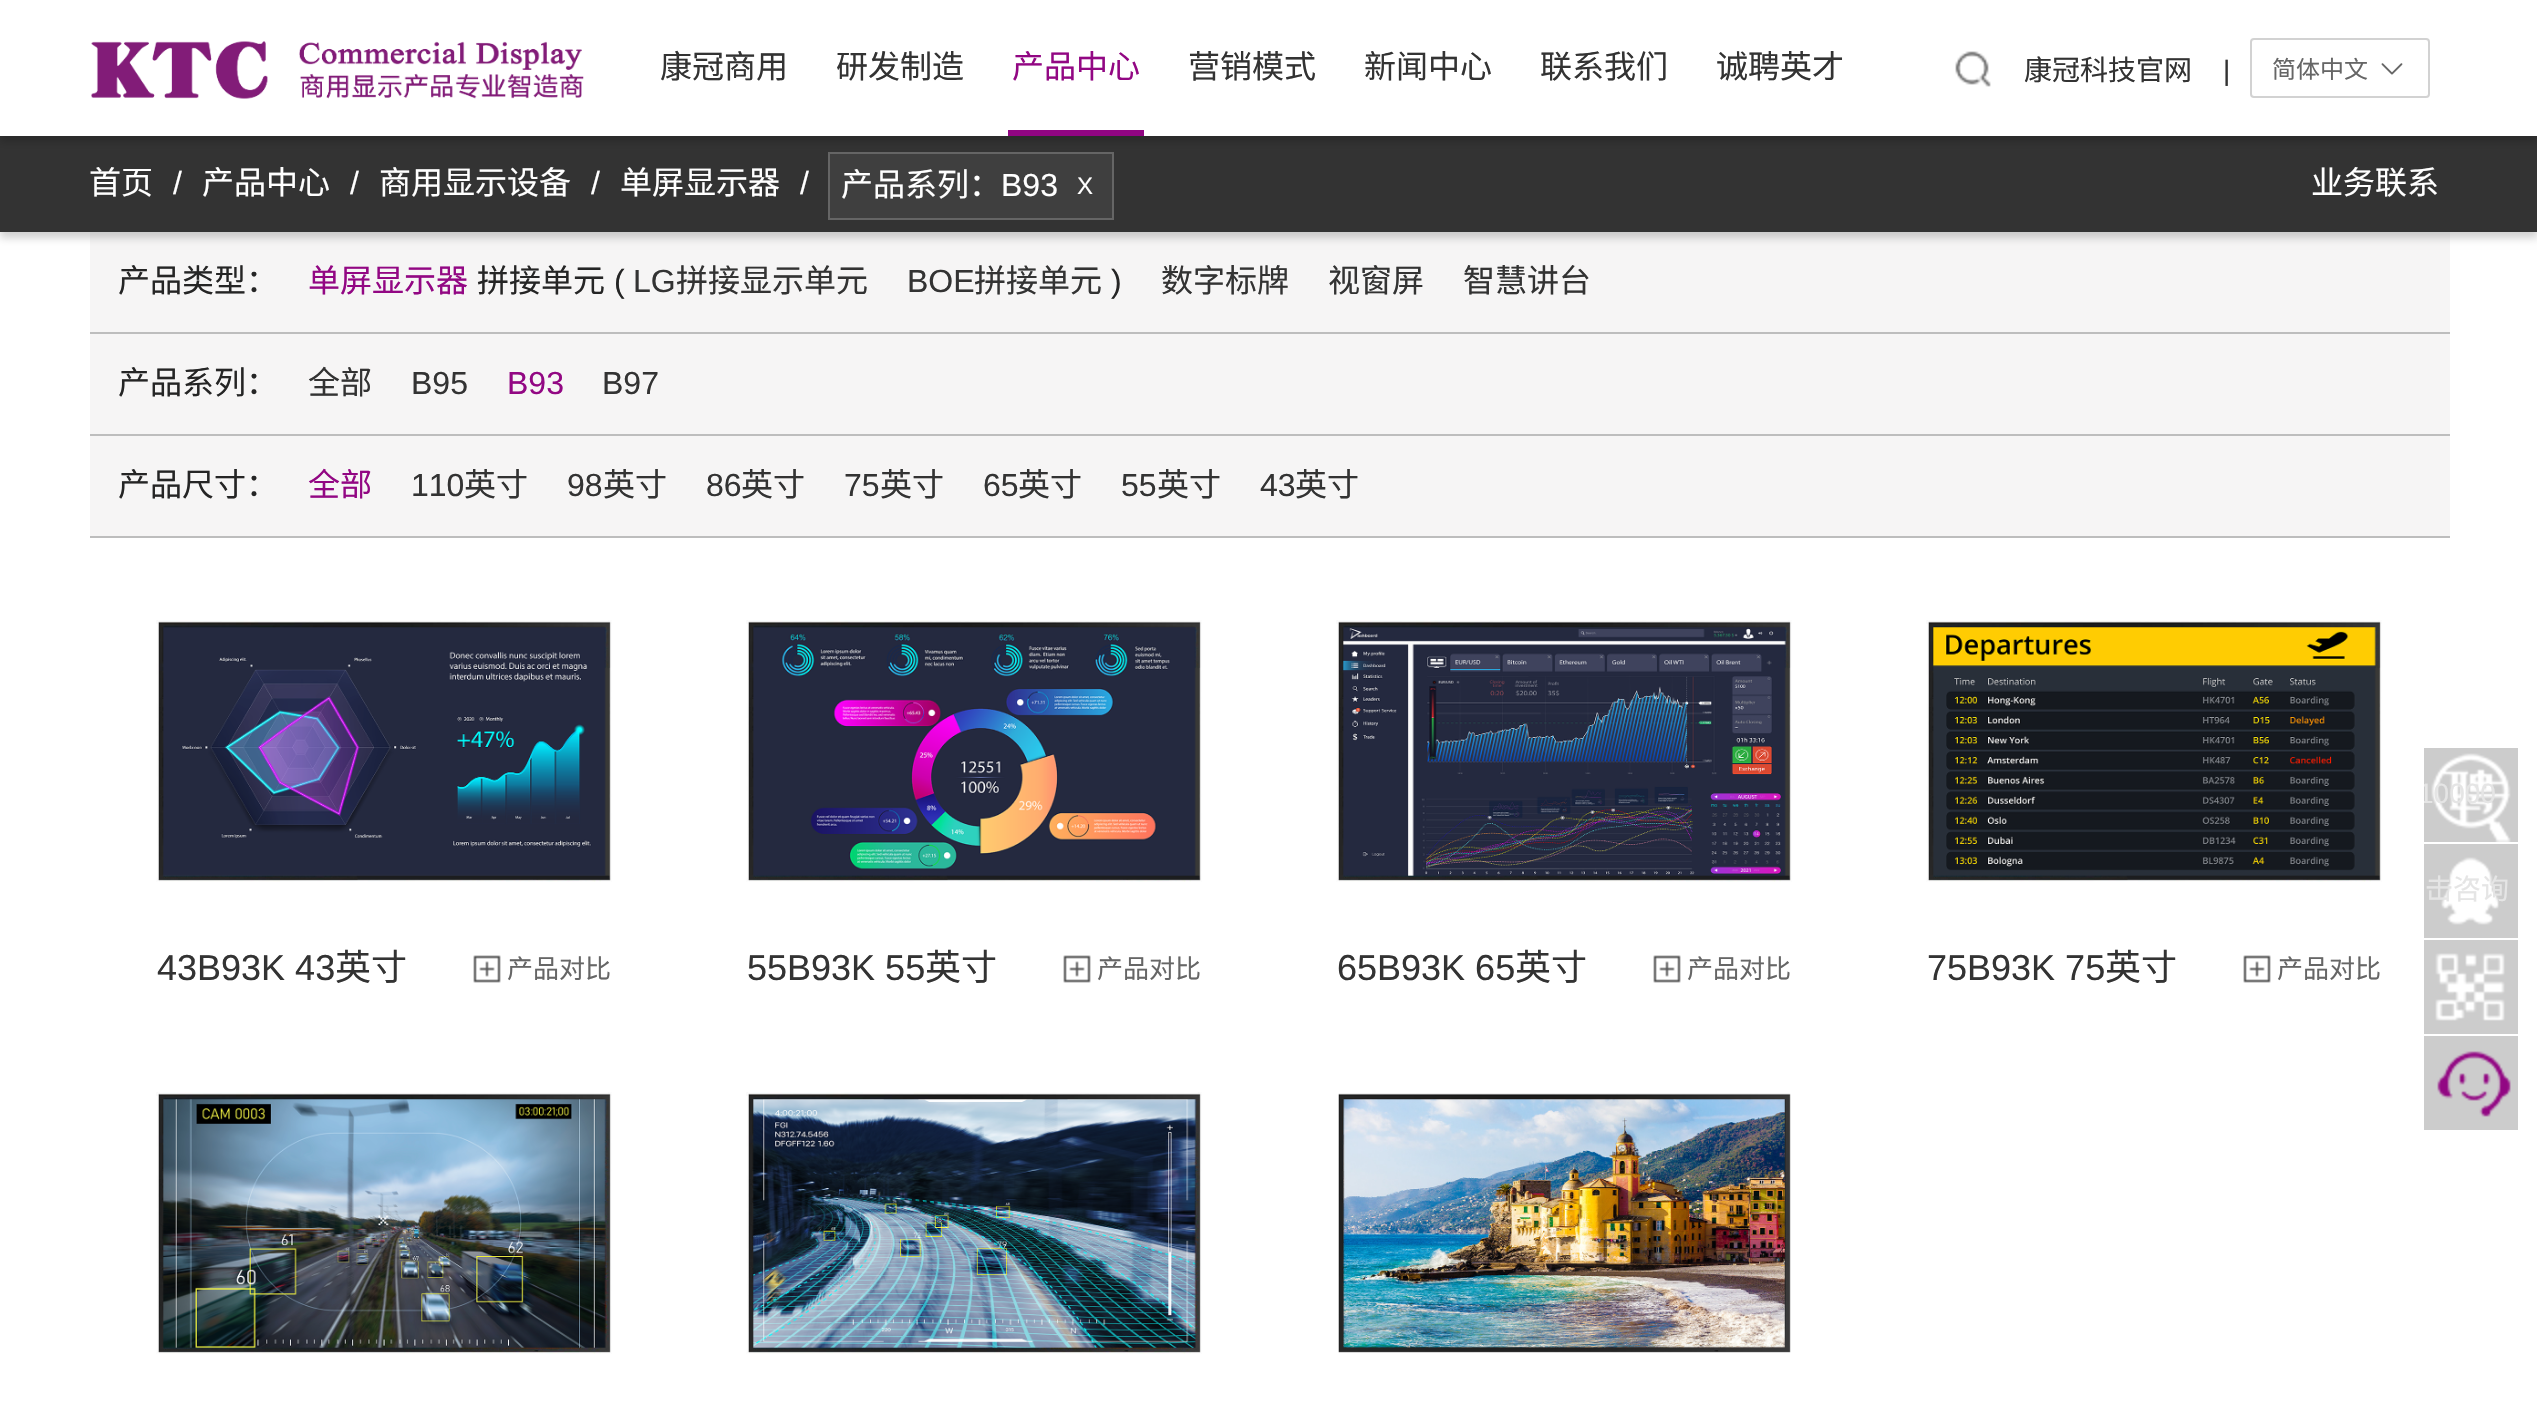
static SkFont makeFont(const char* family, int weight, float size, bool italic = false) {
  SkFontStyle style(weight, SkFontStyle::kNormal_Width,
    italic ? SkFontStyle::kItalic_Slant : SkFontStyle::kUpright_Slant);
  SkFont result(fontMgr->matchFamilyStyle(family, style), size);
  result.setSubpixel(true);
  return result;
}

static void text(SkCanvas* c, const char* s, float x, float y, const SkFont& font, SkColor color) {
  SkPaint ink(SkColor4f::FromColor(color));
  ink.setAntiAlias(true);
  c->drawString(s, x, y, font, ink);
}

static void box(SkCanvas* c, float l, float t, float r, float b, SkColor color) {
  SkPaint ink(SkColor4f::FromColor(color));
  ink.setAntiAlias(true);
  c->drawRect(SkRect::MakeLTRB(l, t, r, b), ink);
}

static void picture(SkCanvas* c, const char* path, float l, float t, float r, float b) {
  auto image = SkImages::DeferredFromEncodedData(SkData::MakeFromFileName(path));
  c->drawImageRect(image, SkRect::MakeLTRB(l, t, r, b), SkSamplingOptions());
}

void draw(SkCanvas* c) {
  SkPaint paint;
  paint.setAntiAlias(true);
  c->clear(0xffffffff);
  box(c, 90, 232, 2450, 332, 0xfff6f5f5);
  paint.setColor(0x2e000000);
  paint.setMaskFilter(SkMaskFilter::MakeBlur(kNormal_SkBlurStyle, 4));
  c->drawRect(SkRect::MakeLTRB(0, 142, 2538, 238), paint);
  paint.setMaskFilter(nullptr);
  box(c, 0, 136, 2537, 232, 0xff333333);
  paint.setColor(0xff3f3f3f);
  c->drawRect(SkRect::MakeLTRB(829, 153, 1113, 219), paint);
  paint.setStyle(SkPaint::kStroke_Style);
  paint.setStrokeWidth(2);
  paint.setColor(0xff656565);
  c->drawRect(SkRect::MakeLTRB(829, 153, 1113, 219), paint);
  paint.setStyle(SkPaint::kFill_Style);
  paint.setColor(0x2e000000);
  paint.setMaskFilter(SkMaskFilter::MakeBlur(kNormal_SkBlurStyle, 4));
  c->drawRect(SkRect::MakeLTRB(0, 6, 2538, 142), paint);
  paint.setMaskFilter(nullptr);
  box(c, 0, 0, 2537, 136, 0xffffffff);
  picture(c, "img_01.png", 91, 41, 584, 99);
  SkFont face1 = makeFont("Noto Sans CJK SC", 400, 32);
  text(c, "康冠商用", 660, 78, face1, 0xff333333);
  text(c, "研发制造", 836, 78, face1, 0xff333333);
  box(c, 1008, 130, 1144, 136, 0xff910582);
  text(c, "产品中心", 1012, 78, face1, 0xff920783);
  text(c, "营销模式", 1188, 78, face1, 0xff333333);
  text(c, "新闻中心", 1364, 78, face1, 0xff333333);
  text(c, "联系我们", 1540, 78, face1, 0xff333333);
  text(c, "诚聘英才", 1716, 78, face1, 0xff333333);
  picture(c, "img_02.png", 1955, 51, 1991, 87);
  SkFont face2 = makeFont("Noto Sans CJK SC", 400, 28);
  text(c, "康冠科技官网", 2024, 80, face2, 0xff333333);
  SkFont face3 = makeFont("Liberation Sans", 400, 28);
  text(c, "|", 2223, 80, face3, 0xff333333);
  paint.setStyle(SkPaint::kStroke_Style);
  paint.setColor(0xffd2d2d2);
  c->drawRoundRect(SkRect::MakeLTRB(2251, 39, 2429, 97), 3, 3, paint);
  SkFont face4 = makeFont("Noto Sans CJK SC", 400, 24);
  text(c, "简体中文", 2272, 78, face4, 0xff666666);
  picture(c, "img_03.png", 2381, 63, 2403, 75);
  text(c, "首页", 89, 194, face1, 0xffffffff);
  SkFont face5 = makeFont("Liberation Sans", 400, 32);
  text(c, "/", 173, 194, face5, 0xffffffff);
  text(c, "产品中心", 202, 194, face1, 0xffffffff);
  text(c, "/", 350, 194, face5, 0xffffffff);
  text(c, "商用显示设备", 379, 194, face1, 0xffffffff);
  text(c, "/", 591, 194, face5, 0xffffffff);
  text(c, "单屏显示器", 620, 194, face1, 0xffffffff);
  text(c, "/", 800, 194, face5, 0xffffffff);
  text(c, "产品系列：", 841, 196, face1, 0xffffffff);
  text(c, "B93", 1001, 196, face5, 0xffffffff);
  SkFont face6 = makeFont("Liberation Sans", 400, 24);
  text(c, "X", 1077, 194, face6, 0xffffffff);
  text(c, "业务联系", 2311, 194, face1, 0xffffffff);
  box(c, 90, 332, 2450, 334, 0xffbdbdbd);
  text(c, "产品类型：", 118, 292, face1, 0xff252525);
  text(c, "单屏显示器", 308, 292, face1, 0xff920783);
  text(c, "拼接单元", 477, 292, face1, 0xff252525);
  text(c, "(", 614, 292, face5, 0xff252525);
  text(c, "LG", 633, 292, face5, 0xff333333);
  text(c, "拼接显示单元", 676, 292, face1, 0xff333333);
  text(c, "BOE", 907, 292, face5, 0xff333333);
  text(c, "拼接单元", 974, 292, face1, 0xff333333);
  text(c, ")", 1111, 292, face5, 0xff252525);
  text(c, "数字标牌", 1161, 292, face1, 0xff333333);
  text(c, "视窗屏", 1328, 292, face1, 0xff333333);
  text(c, "智慧讲台", 1463, 292, face1, 0xff333333);
  box(c, 90, 334, 2450, 434, 0xfff6f5f5);
  box(c, 90, 434, 2450, 436, 0xffbdbdbd);
  text(c, "产品系列：", 118, 394, face1, 0xff252525);
  text(c, "全部", 308, 394, face1, 0xff333333);
  text(c, "B95", 411, 394, face5, 0xff333333);
  text(c, "B93", 507, 394, face5, 0xff920783);
  text(c, "B97", 602, 394, face5, 0xff333333);
  box(c, 90, 436, 2450, 536, 0xfff6f5f5);
  box(c, 90, 536, 2450, 538, 0xffbdbdbd);
  text(c, "产品尺寸：", 118, 496, face1, 0xff252525);
  text(c, "全部", 308, 496, face1, 0xff920783);
  text(c, "110", 411, 496, face5, 0xff333333);
  text(c, "英寸", 464, 496, face1, 0xff333333);
  text(c, "98", 567, 496, face5, 0xff333333);
  text(c, "英寸", 603, 496, face1, 0xff333333);
  text(c, "86", 706, 496, face5, 0xff333333);
  text(c, "英寸", 741, 496, face1, 0xff333333);
  text(c, "75", 844, 496, face5, 0xff333333);
  text(c, "英寸", 880, 496, face1, 0xff333333);
  text(c, "65", 983, 496, face5, 0xff333333);
  text(c, "英寸", 1018, 496, face1, 0xff333333);
  text(c, "55", 1121, 496, face5, 0xff333333);
  text(c, "英寸", 1157, 496, face1, 0xff333333);
  text(c, "43", 1260, 496, face5, 0xff333333);
  text(c, "英寸", 1295, 496, face1, 0xff333333);
  picture(c, "img_04.png", 156, 620, 612, 882);
  SkFont face7 = makeFont("Liberation Sans", 400, 36);
  text(c, "43B93K 43", 157, 980, face7, 0xff333333);
  SkFont face8 = makeFont("Noto Sans CJK SC", 400, 36);
  text(c, "英寸", 335, 980, face8, 0xff333333);
  picture(c, "img_05.png", 473, 955, 501, 983);
  SkFont face9 = makeFont("Noto Sans CJK SC", 400, 26);
  text(c, "产品对比", 507, 978, face9, 0xff666666);
  picture(c, "img_06.png", 746, 620, 1202, 882);
  text(c, "55B93K 55", 747, 980, face7, 0xff333333);
  text(c, "英寸", 925, 980, face8, 0xff333333);
  picture(c, "img_05.png", 1063, 955, 1091, 983);
  text(c, "产品对比", 1097, 978, face9, 0xff666666);
  picture(c, "img_07.png", 1336, 620, 1792, 882);
  text(c, "65B93K 65", 1337, 980, face7, 0xff333333);
  text(c, "英寸", 1515, 980, face8, 0xff333333);
  picture(c, "img_05.png", 1653, 955, 1681, 983);
  text(c, "产品对比", 1687, 978, face9, 0xff666666);
  picture(c, "img_08.png", 1926, 620, 2382, 882);
  text(c, "75B93K 75", 1927, 980, face7, 0xff333333);
  text(c, "英寸", 2105, 980, face8, 0xff333333);
  picture(c, "img_05.png", 2243, 955, 2271, 983);
  text(c, "产品对比", 2277, 978, face9, 0xff666666);
  picture(c, "img_09.png", 156, 1092, 612, 1354);
  picture(c, "img_10.png", 746, 1092, 1202, 1354);
  picture(c, "img_11.png", 1338, 1093, 1791, 1353);
  box(c, 2424, 748, 2518, 842, 0xffcccccc);
  picture(c, "img_12.png", 2431, 753, 2511, 842);
  c->save();
  c->clipRect(SkRect::MakeLTRB(2424, 748, 2518, 844));
  text(c, "10000", 2418, 803, face3, 0xffe5e5e5);
  c->restore();
  box(c, 2424, 844, 2518, 938, 0xffcccccc);
  picture(c, "img_13.png", 2441, 857, 2499, 925);
  text(c, "击咨询", 2425, 899, face2, 0xffe5e5e5);
  box(c, 2424, 940, 2518, 1034, 0xffcccccc);
  picture(c, "img_14.png", 2435, 953, 2505, 1021);
  box(c, 2424, 1036, 2518, 1130, 0xffcccccc);
  picture(c, "img_15.png", 2437, 1051, 2511, 1117);
}
